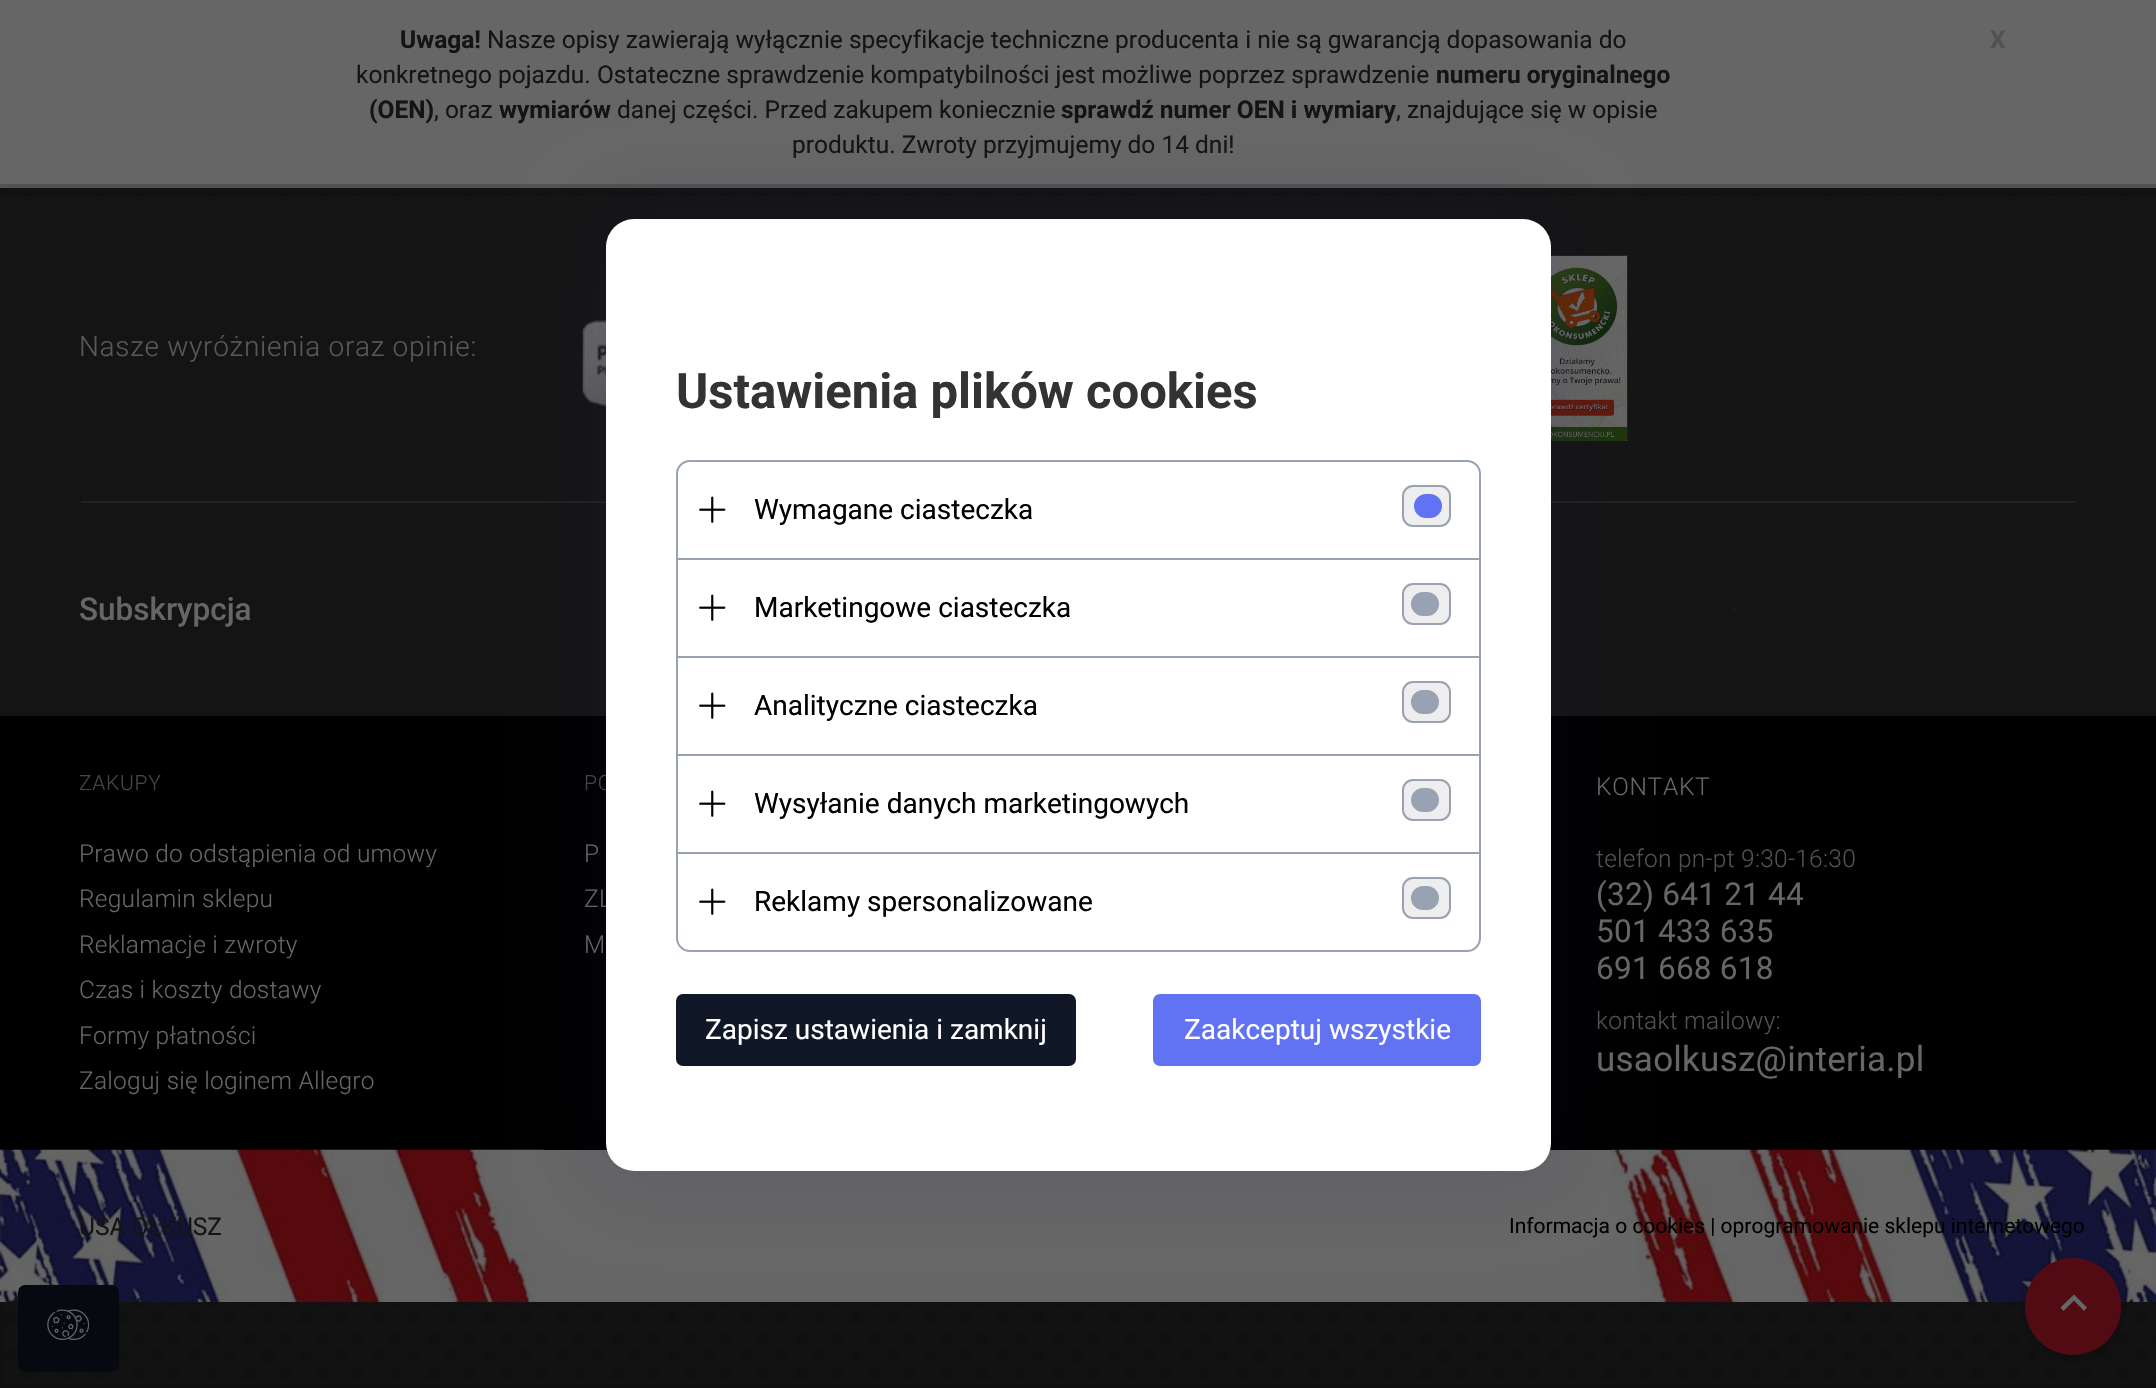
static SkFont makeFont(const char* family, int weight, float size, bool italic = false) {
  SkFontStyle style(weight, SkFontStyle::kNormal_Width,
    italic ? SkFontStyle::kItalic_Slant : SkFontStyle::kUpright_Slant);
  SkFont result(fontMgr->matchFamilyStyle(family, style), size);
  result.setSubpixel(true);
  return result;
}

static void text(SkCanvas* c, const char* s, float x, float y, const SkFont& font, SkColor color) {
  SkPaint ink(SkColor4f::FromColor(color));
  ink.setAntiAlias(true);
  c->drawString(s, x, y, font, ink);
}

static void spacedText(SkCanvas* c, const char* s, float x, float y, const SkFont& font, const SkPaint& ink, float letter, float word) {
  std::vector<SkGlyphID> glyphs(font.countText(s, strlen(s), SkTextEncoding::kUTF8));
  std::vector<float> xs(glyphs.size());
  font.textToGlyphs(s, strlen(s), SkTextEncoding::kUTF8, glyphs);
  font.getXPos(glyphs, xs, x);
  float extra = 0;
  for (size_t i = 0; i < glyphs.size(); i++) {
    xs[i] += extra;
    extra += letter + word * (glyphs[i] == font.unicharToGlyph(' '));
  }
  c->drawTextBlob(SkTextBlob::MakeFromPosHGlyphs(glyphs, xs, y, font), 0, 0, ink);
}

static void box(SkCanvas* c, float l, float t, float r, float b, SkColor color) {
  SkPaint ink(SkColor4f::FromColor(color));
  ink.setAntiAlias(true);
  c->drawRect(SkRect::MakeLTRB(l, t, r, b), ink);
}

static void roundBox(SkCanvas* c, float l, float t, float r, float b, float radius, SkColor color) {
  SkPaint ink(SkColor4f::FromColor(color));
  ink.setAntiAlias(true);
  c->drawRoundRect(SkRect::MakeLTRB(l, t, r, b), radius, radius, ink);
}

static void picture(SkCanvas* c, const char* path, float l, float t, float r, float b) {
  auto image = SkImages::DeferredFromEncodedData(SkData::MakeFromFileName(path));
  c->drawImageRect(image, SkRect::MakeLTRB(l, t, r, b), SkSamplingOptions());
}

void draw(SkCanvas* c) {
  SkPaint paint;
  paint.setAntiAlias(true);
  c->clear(0xff101010);
  picture(c, "img_01.png", 4, 188, 2156, 1384);
  box(c, 0, 0, 2156, 184, 0xff666666);
  box(c, 0, 184, 2156, 188, 0xff525252);
  SkFont face1 = makeFont("Roboto", 700, 24.5f);
  text(c, "Uwaga!", 400, 48, face1, 0xff141414);
  SkFont face2 = makeFont("Roboto", 400, 24.5f);
  text(c, "Nasze opisy zawierają wyłącznie specyfikacje techniczne producenta i nie są gwarancją dopasowania do", 487, 48, face2, 0xff141414);
  text(c, "konkretnego pojazdu. Ostateczne sprawdzenie kompatybilności jest możliwe poprzez sprawdzenie", 356, 83, face2, 0xff141414);
  text(c, "numeru oryginalnego", 1436, 83, face1, 0xff141414);
  text(c, "(OEN)", 369, 118, face1, 0xff141414);
  text(c, ", oraz", 434, 118, face2, 0xff141414);
  text(c, "wymiarów", 499, 118, face1, 0xff141414);
  text(c, "danej części. Przed zakupem koniecznie", 617, 118, face2, 0xff141414);
  text(c, "sprawdź numer OEN i wymiary", 1061, 118, face1, 0xff141414);
  text(c, ", znajdujące się w opisie", 1396, 118, face2, 0xff141414);
  text(c, "produktu. Zwroty przyjmujemy do 14 dni!", 792, 153, face2, 0xff141414);
  text(c, "X", 1990, 48, face1, 0xff515151);
  box(c, 0, 196, 2156, 716, 0xff141414);
  box(c, 81, 501, 2076, 503, 0xff212121);
  SkFont face3 = makeFont("Roboto", 300, 28);
  paint.setColor(0xff585858);
  spacedText(c, "Nasze wyróżnienia oraz opinie:", 79, 356, face3, paint, 0.7f, 0);
  picture(c, "img_02.png", 582, 319, 606, 408);
  picture(c, "img_03.png", 1551, 255, 1628, 441);
  SkFont face4 = makeFont("Roboto", 500, 31.5f);
  text(c, "Subskrypcja", 79, 620, face4, 0xff666666);
  box(c, 1733, 609, 1735, 611, 0xff212121);
  box(c, 0, 716, 2156, 1150, 0xff000000);
  SkFont face5 = makeFont("Roboto", 300, 21);
  paint.setColor(0xff474747);
  spacedText(c, "ZAKUPY", 79, 790, face5, paint, 0.7f, 0);
  SkFont face6 = makeFont("Roboto", 300, 24.5f);
  paint.setColor(0xff666666);
  spacedText(c, "Prawo do odstąpienia od umowy", 79, 862, face6, paint, 0.25f, 0);
  spacedText(c, "Regulamin sklepu", 79, 907, face6, paint, 0.25f, 0);
  spacedText(c, "Reklamacje i zwroty", 79, 953, face6, paint, 0.25f, 0);
  spacedText(c, "Czas i koszty dostawy", 79, 998, face6, paint, 0.25f, 0);
  spacedText(c, "Formy płatności", 79, 1044, face6, paint, 0.25f, 0);
  spacedText(c, "Zaloguj się loginem Allegro", 79, 1089, face6, paint, 0.25f, 0);
  paint.setColor(0xff474747);
  spacedText(c, "PO", 584, 790, face5, paint, 0.7f, 0);
  paint.setColor(0xff666666);
  spacedText(c, "P", 584, 862, face6, paint, 0.25f, 0);
  spacedText(c, "ZL", 584, 907, face6, paint, 0.25f, 0);
  spacedText(c, "M", 584, 953, face6, paint, 0.25f, 0);
  spacedText(c, "KONTAKT", 1596, 795, face6, paint, 0.7f, 0);
  paint.setColor(0xff515151);
  spacedText(c, "telefon pn-pt 9:30-16:30", 1596, 867, face6, paint, 0.25f, 0);
  SkFont face7 = makeFont("Roboto", 400, 31.5f);
  paint.setColor(0xff666666);
  spacedText(c, "(32) 641 21 44", 1596, 905, face7, paint, 0.25f, 0);
  spacedText(c, "501 433 635", 1596, 942, face7, paint, 0.25f, 0);
  spacedText(c, "691 668 618", 1596, 979, face7, paint, 0.25f, 0);
  paint.setColor(0xff515151);
  spacedText(c, "kontakt mailowy:", 1596, 1029, face6, paint, 0.25f, 0);
  SkFont face8 = makeFont("Roboto", 400, 35);
  paint.setColor(0xff666666);
  spacedText(c, "usaolkusz@interia.pl", 1596, 1071, face8, paint, 0.25f, 0);
  box(c, 544, 1150, 1612, 1302, 0xff666666);
  picture(c, "img_04.png", 0, 1149, 2156, 1302);
  text(c, "USA OLKUSZ", 79, 1235, face2, 0xff141414);
  SkFont face9 = makeFont("Roboto", 400, 21);
  text(c, "Informacja o cookies | oprogramowanie sklepu internetowego", 1509, 1233, face9, 0xff000000);
  paint.setColor(0x26211a69);
  paint.setMaskFilter(SkMaskFilter::MakeBlur(kNormal_SkBlurStyle, 42));
  c->drawRoundRect(SkRect::MakeLTRB(606, 219, 1551, 1171), 28, 28, paint);
  paint.setMaskFilter(nullptr);
  roundBox(c, 606, 219, 1551, 1171, 28, 0xffffffff);
  SkFont face10 = makeFont("Roboto", 700, 49);
  text(c, "Ustawienia plików cookies", 676, 408, face10, 0xff333333);
  paint.setStyle(SkPaint::kStroke_Style);
  paint.setStrokeWidth(2);
  paint.setColor(0xff98a2b3);
  c->drawRoundRect(SkRect::MakeLTRB(677, 461, 1480, 951), 13, 13, paint);
  picture(c, "img_05.png", 699, 496, 726, 523);
  SkFont face11 = makeFont("Roboto", 400, 28);
  text(c, "Wymagane ciasteczka", 754, 519, face11, 0xff000000);
  paint.setStyle(SkPaint::kFill_Style);
  paint.setColor(0xffeeeeee);
  c->drawRoundRect(SkRect::MakeLTRB(1403, 486, 1450, 526), 10, 10, paint);
  paint.setStyle(SkPaint::kStroke_Style);
  paint.setColor(0xff98a2b3);
  c->drawRoundRect(SkRect::MakeLTRB(1403, 486, 1450, 526), 10, 10, paint);
  paint.setStyle(SkPaint::kFill_Style);
  paint.setColor(0xff6172f3);
  c->drawRoundRect(SkRect::MakeLTRB(1415, 495, 1441, 517), 11, 11, paint);
  paint.setStyle(SkPaint::kStroke_Style);
  c->drawRoundRect(SkRect::MakeLTRB(1415, 495, 1441, 517), 11, 11, paint);
  box(c, 677, 558, 1479, 560, 0xff98a2b3);
  picture(c, "img_05.png", 699, 594, 726, 621);
  text(c, "Marketingowe ciasteczka", 754, 617, face11, 0xff000000);
  paint.setStyle(SkPaint::kFill_Style);
  paint.setColor(0xffeeeeee);
  c->drawRoundRect(SkRect::MakeLTRB(1403, 584, 1450, 624), 10, 10, paint);
  paint.setStyle(SkPaint::kStroke_Style);
  paint.setColor(0xff98a2b3);
  c->drawRoundRect(SkRect::MakeLTRB(1403, 584, 1450, 624), 10, 10, paint);
  paint.setStyle(SkPaint::kFill_Style);
  c->drawRoundRect(SkRect::MakeLTRB(1412, 593, 1438, 615), 11, 11, paint);
  paint.setStyle(SkPaint::kStroke_Style);
  c->drawRoundRect(SkRect::MakeLTRB(1412, 593, 1438, 615), 11, 11, paint);
  box(c, 677, 656, 1479, 658, 0xff98a2b3);
  picture(c, "img_05.png", 699, 692, 726, 719);
  text(c, "Analityczne ciasteczka", 754, 715, face11, 0xff000000);
  paint.setStyle(SkPaint::kFill_Style);
  paint.setColor(0xffeeeeee);
  c->drawRoundRect(SkRect::MakeLTRB(1403, 682, 1450, 722), 10, 10, paint);
  paint.setStyle(SkPaint::kStroke_Style);
  paint.setColor(0xff98a2b3);
  c->drawRoundRect(SkRect::MakeLTRB(1403, 682, 1450, 722), 10, 10, paint);
  paint.setStyle(SkPaint::kFill_Style);
  c->drawRoundRect(SkRect::MakeLTRB(1412, 691, 1438, 713), 11, 11, paint);
  paint.setStyle(SkPaint::kStroke_Style);
  c->drawRoundRect(SkRect::MakeLTRB(1412, 691, 1438, 713), 11, 11, paint);
  box(c, 677, 754, 1479, 756, 0xff98a2b3);
  picture(c, "img_05.png", 699, 790, 726, 817);
  text(c, "Wysyłanie danych marketingowych", 754, 813, face11, 0xff000000);
  paint.setStyle(SkPaint::kFill_Style);
  paint.setColor(0xffeeeeee);
  c->drawRoundRect(SkRect::MakeLTRB(1403, 780, 1450, 820), 10, 10, paint);
  paint.setStyle(SkPaint::kStroke_Style);
  paint.setColor(0xff98a2b3);
  c->drawRoundRect(SkRect::MakeLTRB(1403, 780, 1450, 820), 10, 10, paint);
  paint.setStyle(SkPaint::kFill_Style);
  c->drawRoundRect(SkRect::MakeLTRB(1412, 789, 1438, 811), 11, 11, paint);
  paint.setStyle(SkPaint::kStroke_Style);
  c->drawRoundRect(SkRect::MakeLTRB(1412, 789, 1438, 811), 11, 11, paint);
  box(c, 677, 852, 1479, 854, 0xff98a2b3);
  picture(c, "img_05.png", 699, 888, 726, 915);
  text(c, "Reklamy spersonalizowane", 754, 911, face11, 0xff000000);
  paint.setStyle(SkPaint::kFill_Style);
  paint.setColor(0xffeeeeee);
  c->drawRoundRect(SkRect::MakeLTRB(1403, 878, 1450, 918), 10, 10, paint);
  paint.setStyle(SkPaint::kStroke_Style);
  paint.setColor(0xff98a2b3);
  c->drawRoundRect(SkRect::MakeLTRB(1403, 878, 1450, 918), 10, 10, paint);
  paint.setStyle(SkPaint::kFill_Style);
  c->drawRoundRect(SkRect::MakeLTRB(1412, 887, 1438, 909), 11, 11, paint);
  paint.setStyle(SkPaint::kStroke_Style);
  c->drawRoundRect(SkRect::MakeLTRB(1412, 887, 1438, 909), 11, 11, paint);
  paint.setStyle(SkPaint::kFill_Style);
  paint.setColor(0xff101828);
  c->drawRoundRect(SkRect::MakeLTRB(677, 995, 1075, 1065), 6, 6, paint);
  paint.setStyle(SkPaint::kStroke_Style);
  c->drawRoundRect(SkRect::MakeLTRB(677, 995, 1075, 1065), 6, 6, paint);
  text(c, "Zapisz ustawienia i zamknij", 705, 1039, face11, 0xffffffff);
  roundBox(c, 1153, 994, 1481, 1066, 7, 0xff6172f3);
  text(c, "Zaakceptuj wszystkie", 1184, 1039, face11, 0xffffffff);
  paint.setStyle(SkPaint::kFill_Style);
  paint.setColor(0xff060a10);
  c->drawRoundRect(SkRect::MakeLTRB(19, 1286, 118, 1371), 6, 6, paint);
  paint.setStyle(SkPaint::kStroke_Style);
  c->drawRoundRect(SkRect::MakeLTRB(19, 1286, 118, 1371), 6, 6, paint);
  picture(c, "img_06.png", 47, 1309, 89, 1340);
  paint.setStyle(SkPaint::kFill_Style);
  paint.setColor(0x1f000000);
  paint.setMaskFilter(SkMaskFilter::MakeBlur(kNormal_SkBlurStyle, 9));
  c->drawRoundRect(SkRect::MakeLTRB(2025, 1262, 2121, 1358), 48, 48, paint);
  paint.setMaskFilter(nullptr);
  paint.setColor(0x29000000);
  paint.setMaskFilter(SkMaskFilter::MakeBlur(kNormal_SkBlurStyle, 4.5f));
  c->drawRoundRect(SkRect::MakeLTRB(2025, 1262, 2121, 1358), 48, 48, paint);
  paint.setMaskFilter(nullptr);
  roundBox(c, 2025, 1258, 2121, 1355, 48, 0xff530b13);
  paint.setColor(0xff666666);
  c->drawPath(SkPathBuilder().moveTo(2063.5f, 1311).lineTo(2074, 1300.5f).lineTo(2084, 1311).lineTo(2087, 1307.5f).lineTo(2074, 1294.5f).lineTo(2060.5f, 1307.5f).close().detach(), paint);
}
